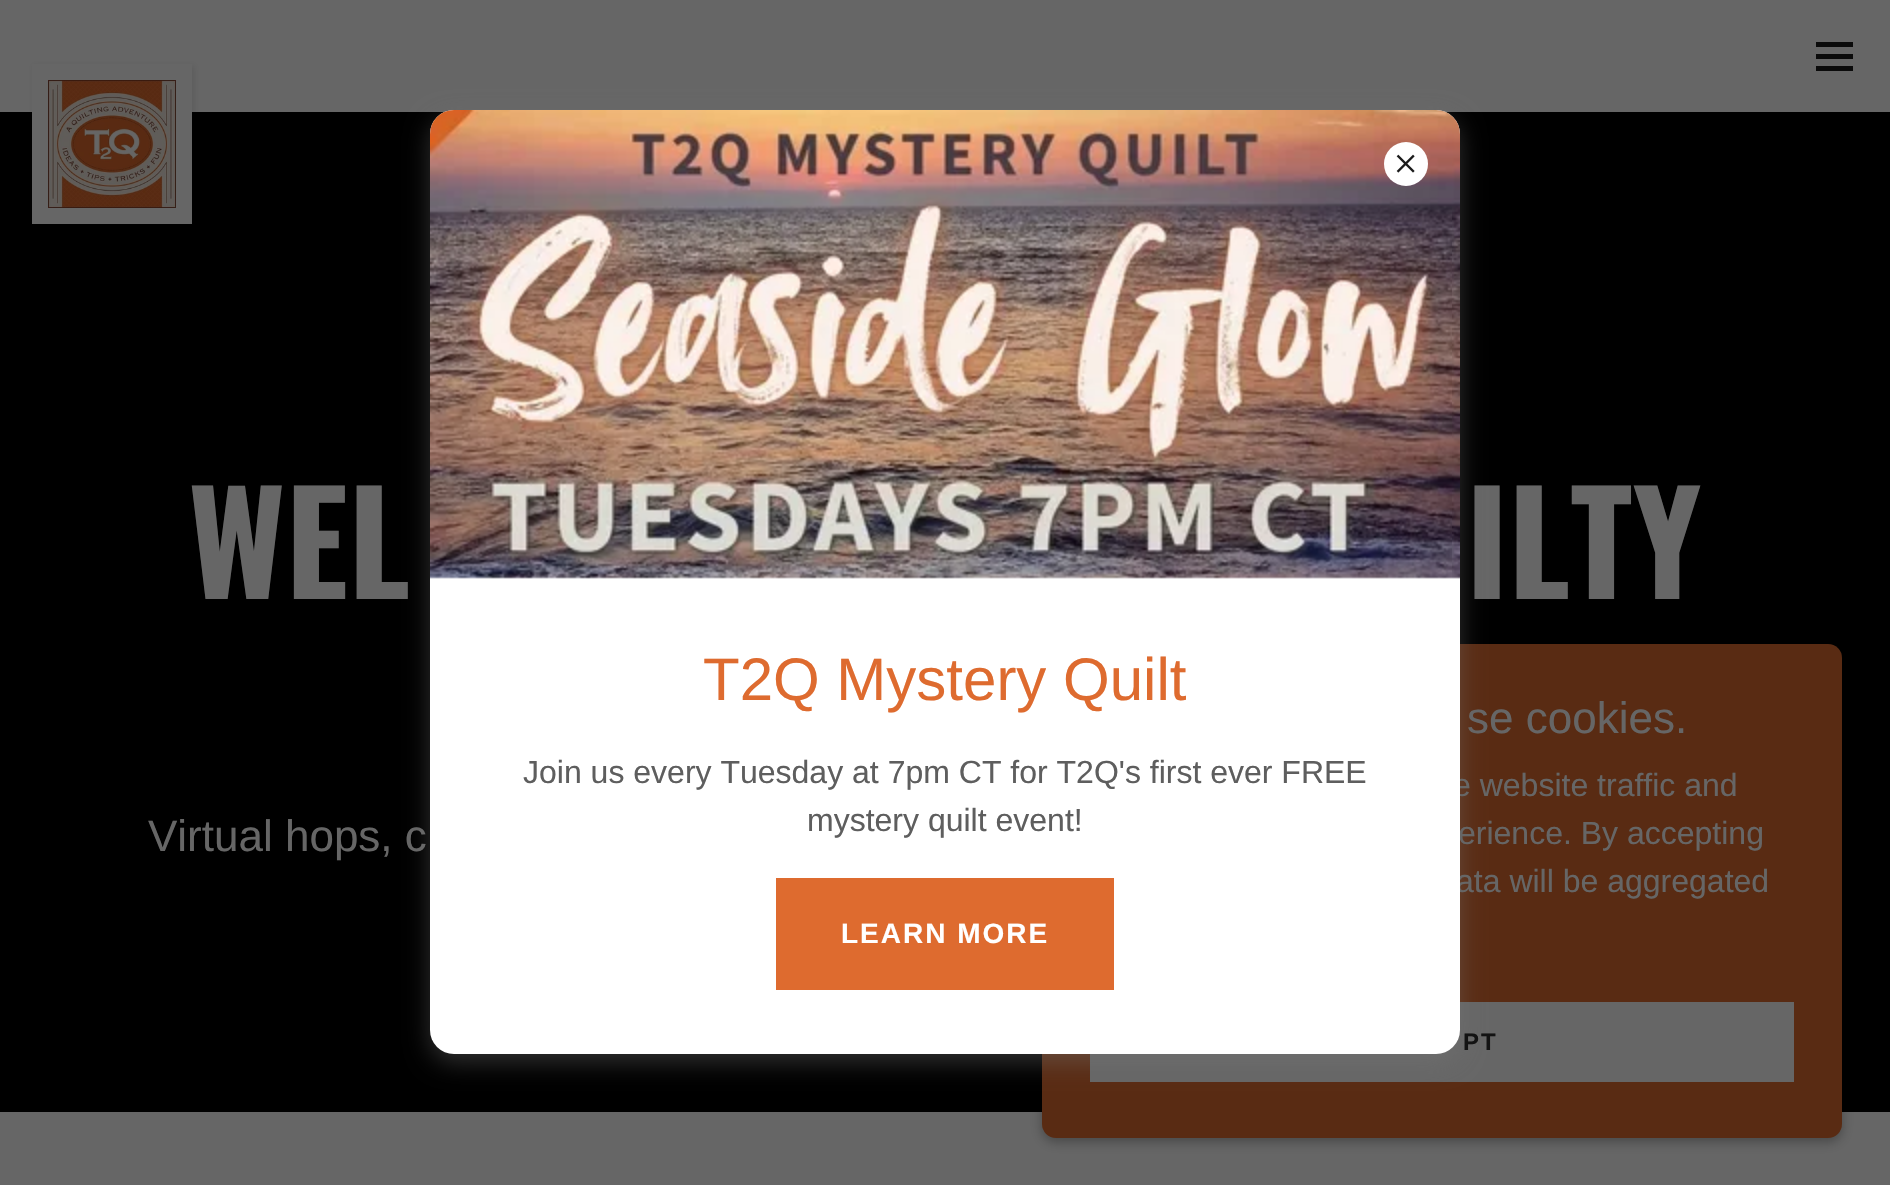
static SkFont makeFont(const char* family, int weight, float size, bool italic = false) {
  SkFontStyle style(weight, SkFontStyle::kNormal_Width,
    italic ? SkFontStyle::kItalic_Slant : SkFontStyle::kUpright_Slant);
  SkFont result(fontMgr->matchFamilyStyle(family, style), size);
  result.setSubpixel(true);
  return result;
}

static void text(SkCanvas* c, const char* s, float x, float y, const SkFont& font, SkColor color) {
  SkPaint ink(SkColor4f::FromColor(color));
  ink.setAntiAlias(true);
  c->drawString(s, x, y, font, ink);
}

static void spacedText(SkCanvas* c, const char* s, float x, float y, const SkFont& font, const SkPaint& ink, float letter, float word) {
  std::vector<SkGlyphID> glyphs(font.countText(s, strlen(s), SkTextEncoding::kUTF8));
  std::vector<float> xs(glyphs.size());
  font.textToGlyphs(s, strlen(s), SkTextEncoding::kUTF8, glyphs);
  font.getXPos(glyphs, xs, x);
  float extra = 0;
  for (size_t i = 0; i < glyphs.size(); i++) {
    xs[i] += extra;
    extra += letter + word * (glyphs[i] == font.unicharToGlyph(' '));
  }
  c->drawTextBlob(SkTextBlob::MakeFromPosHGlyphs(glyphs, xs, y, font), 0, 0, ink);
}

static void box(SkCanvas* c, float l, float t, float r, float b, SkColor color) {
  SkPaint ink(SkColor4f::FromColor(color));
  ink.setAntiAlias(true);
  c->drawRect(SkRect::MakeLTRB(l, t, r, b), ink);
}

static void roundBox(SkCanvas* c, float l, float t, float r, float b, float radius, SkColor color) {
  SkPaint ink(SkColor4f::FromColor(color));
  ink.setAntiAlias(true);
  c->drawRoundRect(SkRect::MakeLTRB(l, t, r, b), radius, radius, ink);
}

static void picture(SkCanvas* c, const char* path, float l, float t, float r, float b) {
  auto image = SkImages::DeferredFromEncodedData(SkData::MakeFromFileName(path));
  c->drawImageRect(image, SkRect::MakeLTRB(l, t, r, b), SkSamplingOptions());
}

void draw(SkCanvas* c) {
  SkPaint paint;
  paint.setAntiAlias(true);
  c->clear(0xff666666);
  box(c, 0, 112, 1890, 1112, 0xff000000);
  paint.setColor(0x1a000000);
  paint.setMaskFilter(SkMaskFilter::MakeBlur(kNormal_SkBlurStyle, 3));
  c->drawRect(SkRect::MakeLTRB(34, 66, 194, 226), paint);
  paint.setMaskFilter(nullptr);
  box(c, 32, 64, 192, 224, 0xff666666);
  picture(c, "img_01.png", 48, 80, 176, 208);
  box(c, 1816, 42, 1853, 47, 0xff0b0b0b);
  box(c, 1816, 54, 1853, 59, 0xff0b0b0b);
  box(c, 1816, 66, 1853, 71, 0xff0b0b0b);
  SkFont face1 = makeFont("Oswald", 700, 140);
  text(c, "WEL", 188, 599, face1, 0xff666666);
  text(c, "ILTY", 1466, 599, face1, 0xff666666);
  SkFont face2 = makeFont("Liberation Sans", 400, 44);
  text(c, "Virtual hops, c", 148, 851, face2, 0xff666666);
  paint.setColor(0x4d000000);
  paint.setMaskFilter(SkMaskFilter::MakeBlur(kNormal_SkBlurStyle, 6));
  c->drawRoundRect(SkRect::MakeLTRB(1042, 648, 1842, 1142), 14, 14, paint);
  paint.setMaskFilter(nullptr);
  roundBox(c, 1042, 644, 1842, 1138, 14, 0xff592b13);
  box(c, 1090, 1002, 1794, 1082, 0xff666666);
  paint.setColor(0x66757575);
  paint.setMaskFilter(SkMaskFilter::MakeBlur(kNormal_SkBlurStyle, 12));
  c->drawRoundRect(SkRect::MakeLTRB(430, 118, 1460, 1062), 24, 24, paint);
  paint.setMaskFilter(nullptr);
  SkFont face3 = makeFont("Liberation Sans", 400, 32);
  text(c, "e website traffic and", 1453, 796, face3, 0xff666666);
  text(c, "erience. By accepting", 1458, 844, face3, 0xff666666);
  text(c, "ata will be aggregated", 1456, 892, face3, 0xff666666);
  roundBox(c, 430, 110, 1460, 1054, 24, 0xffffffff);
  picture(c, "img_03.png", 430, 110, 1460, 579);
  paint.setColor(0xffffffff);
  c->drawCircle(1406, 164, 22, paint);
  picture(c, "img_02.png", 1396, 154, 1415, 173);
  SkFont face4 = makeFont("Liberation Sans", 400, 60);
  text(c, "T2Q Mystery Quilt", 703, 700, face4, 0xffde6b2f);
  text(c, "Join us every Tuesday at 7pm CT for T2Q's first ever FREE", 523, 783, face3, 0xff5e5e5e);
  text(c, "mystery quilt event!", 807, 831, face3, 0xff5e5e5e);
  box(c, 776, 878, 1114, 990, 0xffde6b2f);
  SkFont face5 = makeFont("Liberation Sans", 700, 28);
  spacedText(c, "LEARN MORE", 841, 943, face5, paint, 2, 0);
  text(c, "se cookies.", 1467, 733, face2, 0xff666666);
  SkFont face6 = makeFont("Liberation Sans", 700, 24);
  paint.setColor(0xff131313);
  spacedText(c, "PT", 1463, 1050, face6, paint, 2, 0);
}
